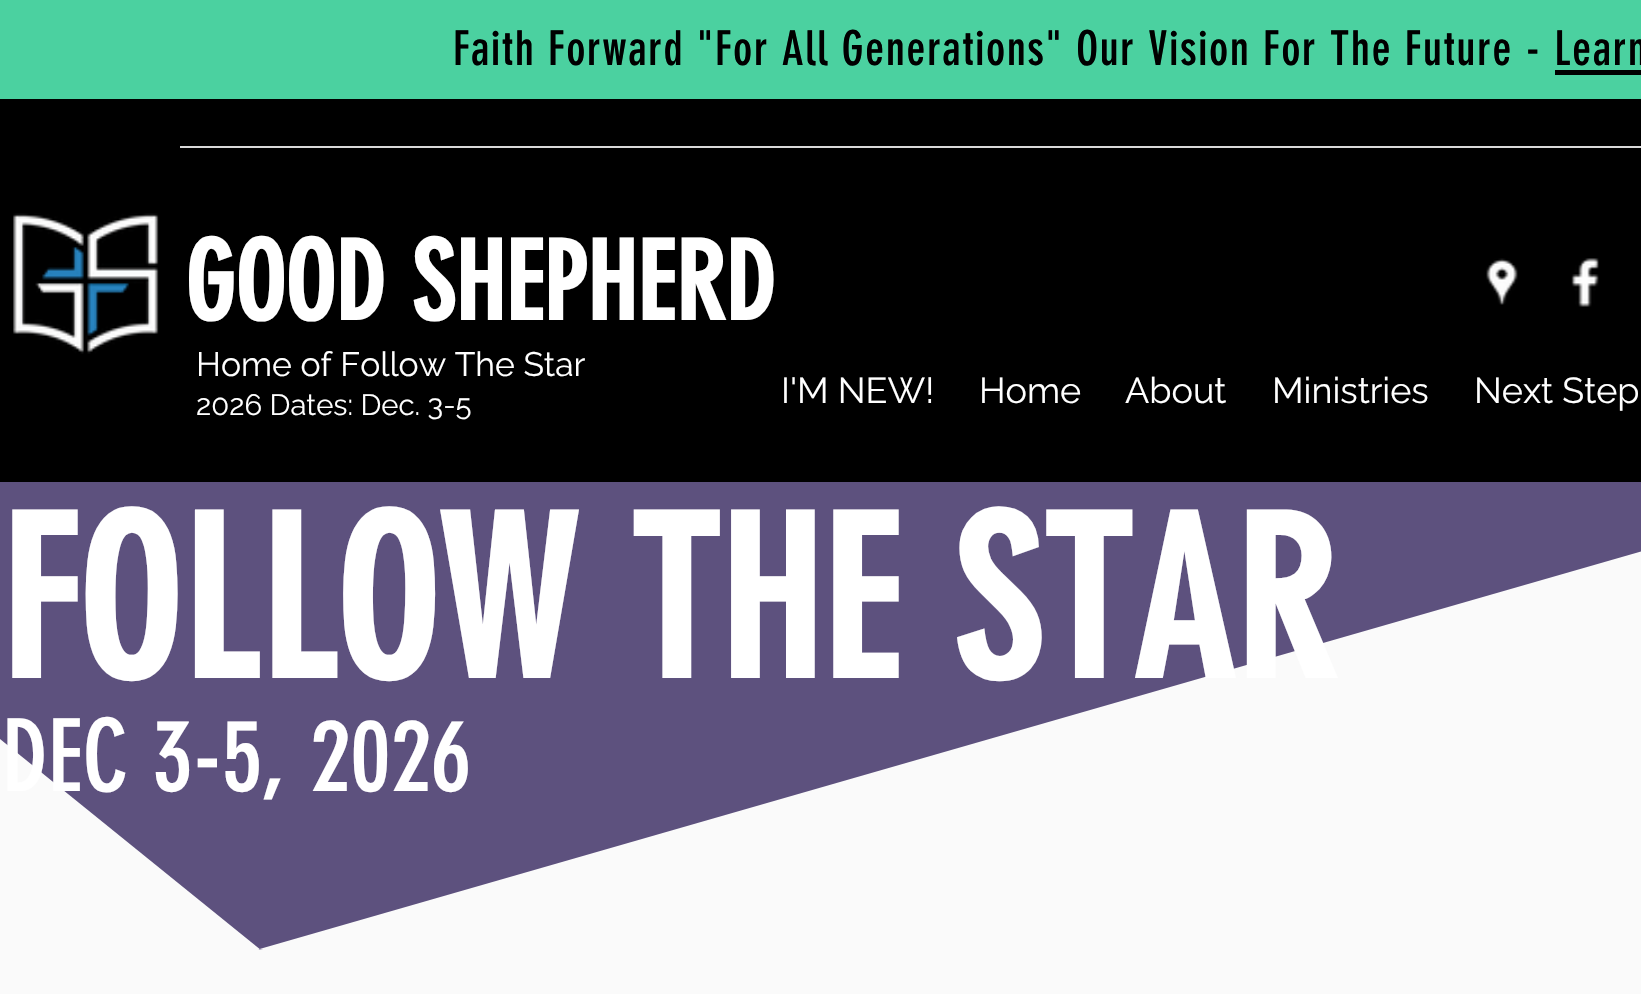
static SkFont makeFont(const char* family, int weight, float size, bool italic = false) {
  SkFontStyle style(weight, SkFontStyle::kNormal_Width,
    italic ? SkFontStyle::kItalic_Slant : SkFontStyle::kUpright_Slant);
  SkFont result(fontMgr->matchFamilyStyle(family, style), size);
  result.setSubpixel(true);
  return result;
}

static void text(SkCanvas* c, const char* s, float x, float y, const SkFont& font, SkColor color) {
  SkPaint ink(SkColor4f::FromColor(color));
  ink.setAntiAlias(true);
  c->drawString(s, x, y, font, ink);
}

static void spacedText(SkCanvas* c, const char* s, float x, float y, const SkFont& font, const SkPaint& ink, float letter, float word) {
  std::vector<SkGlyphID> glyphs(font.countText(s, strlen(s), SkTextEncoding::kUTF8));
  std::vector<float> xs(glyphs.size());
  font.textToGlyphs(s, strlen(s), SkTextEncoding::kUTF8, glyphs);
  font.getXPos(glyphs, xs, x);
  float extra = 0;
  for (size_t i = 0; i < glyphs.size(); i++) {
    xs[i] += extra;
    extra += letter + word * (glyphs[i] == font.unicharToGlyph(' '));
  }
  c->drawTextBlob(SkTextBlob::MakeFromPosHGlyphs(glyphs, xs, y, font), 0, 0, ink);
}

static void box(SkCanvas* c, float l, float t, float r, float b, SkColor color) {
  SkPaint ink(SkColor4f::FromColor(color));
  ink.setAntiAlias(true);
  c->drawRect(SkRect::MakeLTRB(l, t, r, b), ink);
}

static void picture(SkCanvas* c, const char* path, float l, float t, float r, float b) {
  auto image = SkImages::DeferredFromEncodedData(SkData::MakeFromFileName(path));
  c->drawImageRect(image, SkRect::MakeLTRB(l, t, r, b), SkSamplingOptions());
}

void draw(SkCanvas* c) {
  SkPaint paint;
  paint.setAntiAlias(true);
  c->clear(0xfffafafa);
  box(c, 0, 0, 1641, 99, 0xff4bd1a0);
  SkFont face1 = makeFont("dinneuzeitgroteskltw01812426", 400, 47.25f);
  paint.setColor(0xff000000);
  spacedText(c, "Faith Forward \"For All Generations\" Our Vision For The Future - Learn", 453, 65, face1, paint, 1.42f, 0);
  box(c, 1555, 70, 1641, 75, 0xff000000);
  box(c, 0, 99, 1641, 482, 0xff000000);
  box(c, 180, 146, 1641, 148, 0xffd9d9d9);
  picture(c, "img_01.png", 13, 213, 159, 354);
  SkFont face2 = makeFont("dinneuzeitgroteskltw01812426", 700, 108);
  text(c, "GOOD SHEPHERD", 185, 320, face2, 0xffffffff);
  picture(c, "img_02.png", 1486, 258, 1518, 305);
  picture(c, "img_03.png", 1571, 258, 1599, 307);
  SkFont face3 = makeFont("Raleway", 400, 33.75f);
  text(c, "Home of Follow The Star", 196, 376, face3, 0xffffffff);
  SkFont face4 = makeFont("Raleway", 400, 29.25f);
  text(c, "2026 Dates: Dec. 3-5", 196, 415, face4, 0xffffffff);
  SkFont face5 = makeFont("Raleway", 400, 36);
  text(c, "I'M NEW!", 781, 403, face5, 0xffffffff);
  text(c, "Home", 979, 403, face5, 0xffffffff);
  text(c, "About", 1125, 403, face5, 0xffffffff);
  text(c, "Ministries", 1272, 403, face5, 0xffffffff);
  text(c, "Next Step", 1474, 403, face5, 0xffffffff);
  picture(c, "img_04.png", 0, 482, 1641, 950);
  SkFont face6 = makeFont("dinneuzeitgroteskltw01812426", 700, 220.5f);
  text(c, "FOLLOW THE STAR", 0, 678, face6, 0xffffffff);
  SkFont face7 = makeFont("dinneuzeitgroteskltw01812426", 400, 99);
  text(c, "DEC 3-5, 2026", 2, 791, face7, 0xffffffff);
}
